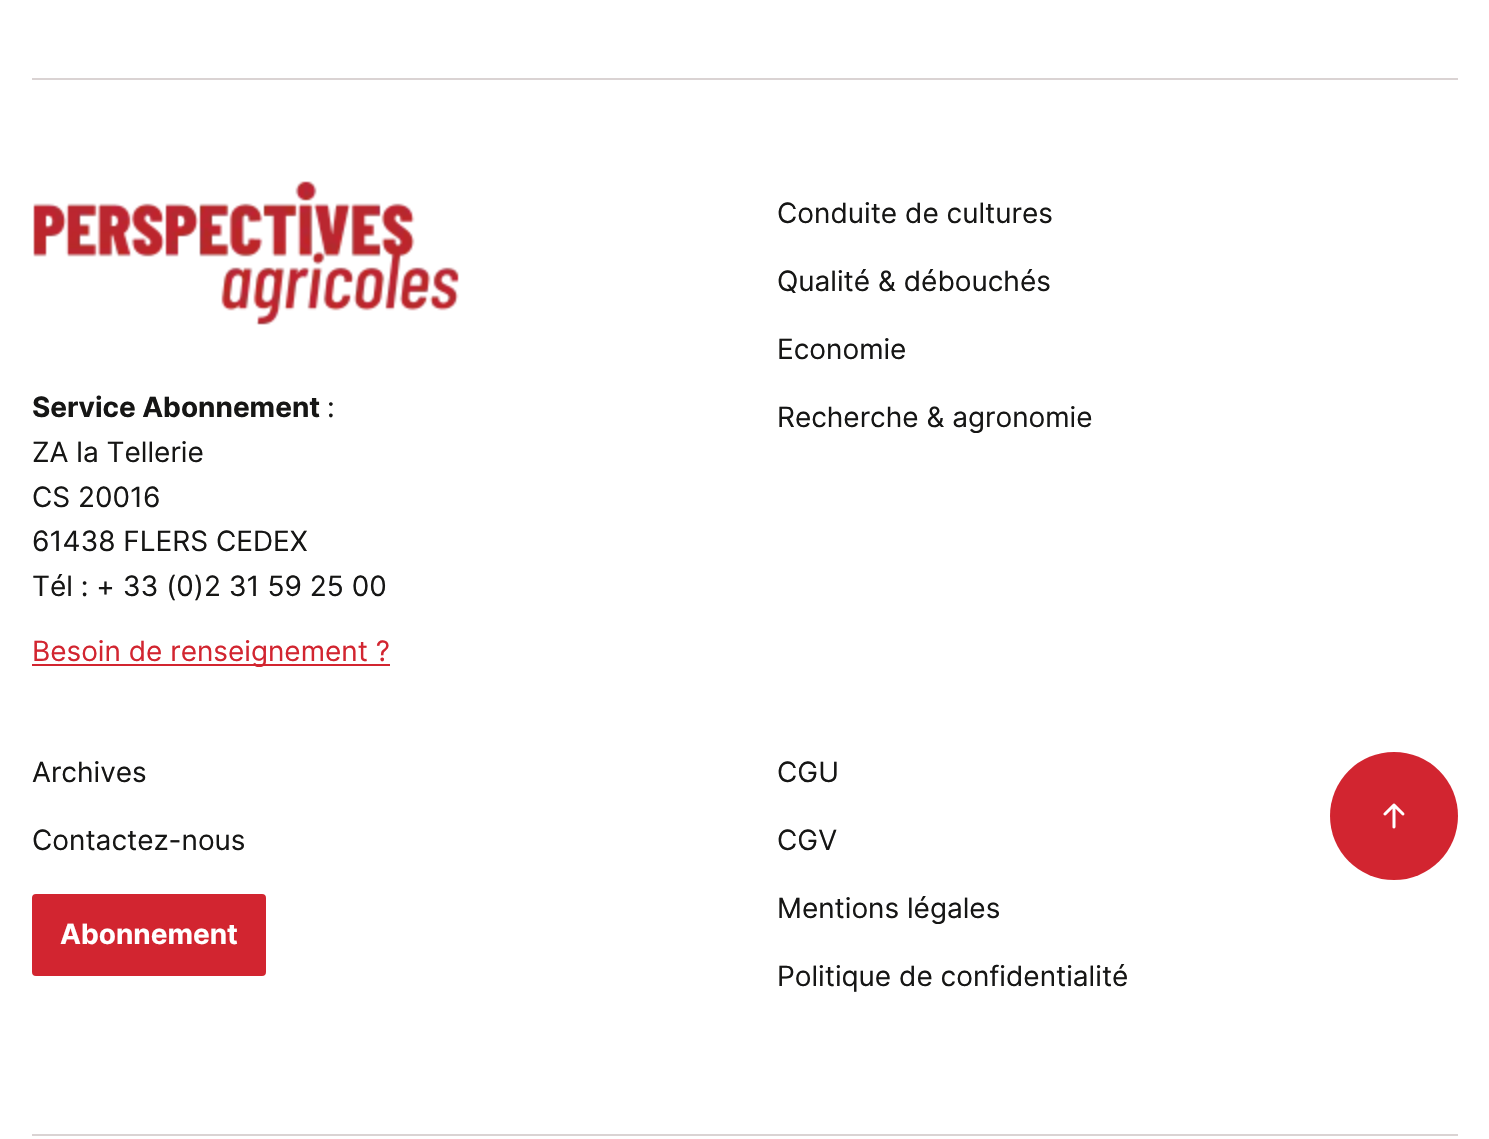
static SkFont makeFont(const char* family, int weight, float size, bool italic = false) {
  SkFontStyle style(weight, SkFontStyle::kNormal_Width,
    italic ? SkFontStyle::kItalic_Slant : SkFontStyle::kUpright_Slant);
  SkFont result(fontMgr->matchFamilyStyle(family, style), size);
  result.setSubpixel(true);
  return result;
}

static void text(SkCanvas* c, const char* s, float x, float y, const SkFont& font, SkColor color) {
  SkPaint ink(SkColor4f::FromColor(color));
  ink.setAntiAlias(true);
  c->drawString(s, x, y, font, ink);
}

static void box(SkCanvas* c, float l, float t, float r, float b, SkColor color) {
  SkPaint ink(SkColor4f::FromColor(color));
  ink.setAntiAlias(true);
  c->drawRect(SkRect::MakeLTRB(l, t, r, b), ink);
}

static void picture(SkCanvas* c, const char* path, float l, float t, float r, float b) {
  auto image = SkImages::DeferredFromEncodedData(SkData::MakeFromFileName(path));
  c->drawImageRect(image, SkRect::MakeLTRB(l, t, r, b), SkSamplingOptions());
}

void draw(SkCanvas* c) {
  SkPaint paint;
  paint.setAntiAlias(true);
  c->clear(0xffffffff);
  box(c, 32, 78, 1458, 80, 0xffdad3d3);
  SkFont face1 = makeFont("Inter", 400, 28);
  text(c, "Conduite de cultures", 777, 223, face1, 0xff161615);
  text(c, "Qualité & débouchés", 777, 291, face1, 0xff161615);
  text(c, "Economie", 777, 359, face1, 0xff161615);
  text(c, "Recherche & agronomie", 777, 427, face1, 0xff161615);
  picture(c, "img_01.png", 33, 181, 459, 325);
  SkFont face2 = makeFont("Inter", 700, 28);
  text(c, "Service Abonnement", 32, 417, face2, 0xff161615);
  text(c, ":", 327, 417, face1, 0xff161615);
  text(c, "ZA la Tellerie", 32, 462, face1, 0xff161615);
  text(c, "CS 20016", 32, 507, face1, 0xff161615);
  text(c, "61438 FLERS CEDEX", 32, 551, face1, 0xff161615);
  text(c, "Tél : + 33 (0)2 31 59 25 00", 32, 596, face1, 0xff161615);
  box(c, 32, 664, 390, 666, 0xffd22530);
  text(c, "Besoin de renseignement ?", 32, 661, face1, 0xffd22530);
  text(c, "Archives", 32, 782, face1, 0xff161615);
  text(c, "Contactez-nous", 32, 850, face1, 0xff161615);
  paint.setColor(0xffd22530);
  c->drawRoundRect(SkRect::MakeLTRB(33, 895, 265, 975), 3, 3, paint);
  paint.setStyle(SkPaint::kStroke_Style);
  paint.setStrokeWidth(2);
  c->drawRoundRect(SkRect::MakeLTRB(33, 895, 265, 975), 3, 3, paint);
  text(c, "Abonnement", 60, 944, face2, 0xffffffff);
  text(c, "CGU", 777, 782, face1, 0xff161615);
  text(c, "CGV", 777, 850, face1, 0xff161615);
  text(c, "Mentions légales", 777, 918, face1, 0xff161615);
  text(c, "Politique de confidentialité", 777, 986, face1, 0xff161615);
  box(c, 32, 1134, 1458, 1136, 0xffdad3d3);
  paint.setStyle(SkPaint::kFill_Style);
  c->drawCircle(1394, 816, 64, paint);
  picture(c, "img_02.png", 1383, 803, 1405, 829);
}
